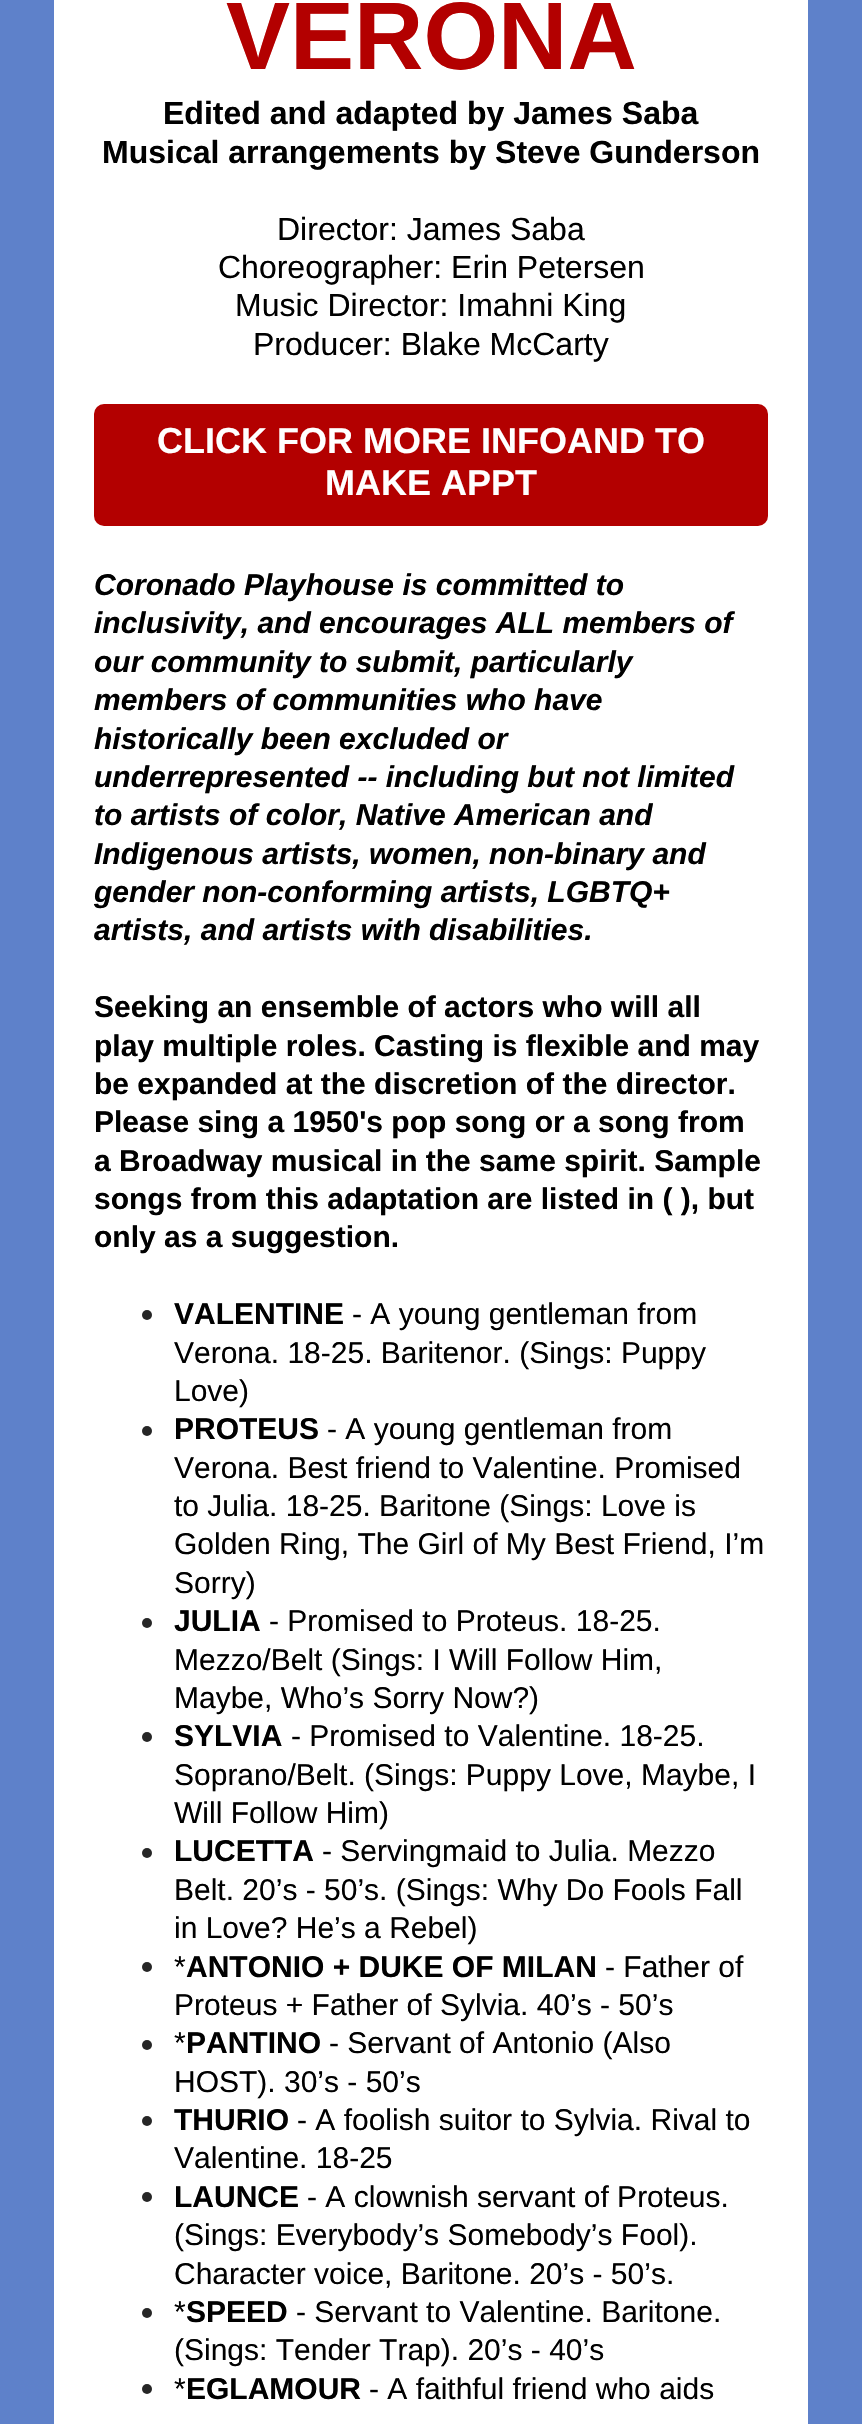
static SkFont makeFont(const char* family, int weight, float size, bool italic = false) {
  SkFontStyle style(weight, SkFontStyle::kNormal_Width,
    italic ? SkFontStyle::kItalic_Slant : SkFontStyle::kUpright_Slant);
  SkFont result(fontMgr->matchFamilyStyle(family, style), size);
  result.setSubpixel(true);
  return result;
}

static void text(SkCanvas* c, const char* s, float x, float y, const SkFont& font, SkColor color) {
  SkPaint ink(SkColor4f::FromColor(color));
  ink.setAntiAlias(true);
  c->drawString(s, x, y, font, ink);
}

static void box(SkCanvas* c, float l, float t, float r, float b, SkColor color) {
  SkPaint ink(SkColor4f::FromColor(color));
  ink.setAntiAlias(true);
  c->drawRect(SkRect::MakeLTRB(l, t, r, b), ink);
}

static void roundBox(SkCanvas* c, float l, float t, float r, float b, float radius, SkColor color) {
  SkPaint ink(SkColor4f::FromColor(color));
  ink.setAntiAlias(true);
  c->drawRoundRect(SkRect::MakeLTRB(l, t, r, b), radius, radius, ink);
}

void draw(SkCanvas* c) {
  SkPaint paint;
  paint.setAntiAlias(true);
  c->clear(0xff5e81ca);
  box(c, 54, 0, 808, 2424, 0xffffffff);
  SkFont face1 = makeFont("Liberation Sans", 700, 96);
  text(c, "VERONA", 226, 69, face1, 0xffb30000);
  SkFont face2 = makeFont("Liberation Sans", 700, 32);
  text(c, "Edited and adapted by James Saba", 163, 124, face2, 0xff000000);
  text(c, "Musical arrangements by Steve Gunderson", 102, 163, face2, 0xff000000);
  SkFont face3 = makeFont("Liberation Sans", 400, 32);
  text(c, "Director: James Saba", 277, 240, face3, 0xff000000);
  text(c, "Choreographer: Erin Petersen", 218, 278, face3, 0xff000000);
  text(c, "Music Director: Imahni King", 235, 316, face3, 0xff000000);
  text(c, "Producer: Blake McCarty", 253, 355, face3, 0xff000000);
  roundBox(c, 94, 404, 768, 526, 10, 0xffb30000);
  SkFont face4 = makeFont("Liberation Sans", 700, 36);
  text(c, "CLICK FOR MORE INFOAND TO", 157, 453, face4, 0xffffffff);
  text(c, "MAKE APPT", 325, 495, face4, 0xffffffff);
  SkFont face5 = makeFont("Liberation Sans", 700, 30, true);
  text(c, "Coronado Playhouse is committed to", 94, 595, face5, 0xff000000);
  text(c, "inclusivity, and encourages ALL members of", 94, 633, face5, 0xff000000);
  text(c, "our community to submit, particularly", 94, 672, face5, 0xff000000);
  text(c, "members of communities who have", 94, 710, face5, 0xff000000);
  text(c, "historically been excluded or", 94, 749, face5, 0xff000000);
  text(c, "underrepresented -- including but not limited", 94, 787, face5, 0xff000000);
  text(c, "to artists of color, Native American and", 94, 825, face5, 0xff000000);
  text(c, "Indigenous artists, women, non-binary and", 94, 864, face5, 0xff000000);
  text(c, "gender non-conforming artists, LGBTQ+", 94, 902, face5, 0xff000000);
  text(c, "artists, and artists with disabilities.", 94, 940, face5, 0xff000000);
  SkFont face6 = makeFont("Liberation Sans", 700, 30);
  text(c, "Seeking an ensemble of actors who will all", 94, 1017, face6, 0xff000000);
  text(c, "play multiple roles. Casting is flexible and may", 94, 1056, face6, 0xff000000);
  text(c, "be expanded at the discretion of the director.", 94, 1094, face6, 0xff000000);
  text(c, "Please sing a 1950's pop song or a song from", 94, 1132, face6, 0xff000000);
  text(c, "a Broadway musical in the same spirit. Sample", 94, 1171, face6, 0xff000000);
  text(c, "songs from this adaptation are listed in ( ), but", 94, 1209, face6, 0xff000000);
  text(c, "only as a suggestion.", 94, 1247, face6, 0xff000000);
  paint.setColor(0xff262626);
  c->drawCircle(147, 1315, 5, paint);
  text(c, "VALENTINE", 174, 1324, face6, 0xff000000);
  SkFont face7 = makeFont("Liberation Sans", 400, 30);
  text(c, "- A young gentleman from", 352, 1324, face7, 0xff000000);
  text(c, "Verona. 18-25. Baritenor. (Sings: Puppy", 174, 1363, face7, 0xff000000);
  text(c, "Love)", 174, 1401, face7, 0xff000000);
  c->drawCircle(147, 1431, 5, paint);
  text(c, "PROTEUS", 174, 1439, face6, 0xff000000);
  text(c, "- A young gentleman from", 327, 1439, face7, 0xff000000);
  text(c, "Verona. Best friend to Valentine. Promised", 174, 1478, face7, 0xff000000);
  text(c, "to Julia. 18-25. Baritone (Sings: Love is", 174, 1516, face7, 0xff000000);
  text(c, "Golden Ring, The Girl of My Best Friend, I’m", 174, 1554, face7, 0xff000000);
  text(c, "Sorry)", 174, 1593, face7, 0xff000000);
  c->drawCircle(147, 1623, 5, paint);
  text(c, "JULIA", 174, 1631, face6, 0xff000000);
  text(c, "- Promised to Proteus. 18-25.", 269, 1631, face7, 0xff000000);
  text(c, "Mezzo/Belt (Sings: I Will Follow Him,", 174, 1670, face7, 0xff000000);
  text(c, "Maybe, Who’s Sorry Now?)", 174, 1708, face7, 0xff000000);
  c->drawCircle(147, 1737, 5, paint);
  text(c, "SYLVIA", 174, 1746, face6, 0xff000000);
  text(c, "- Promised to Valentine. 18-25.", 291, 1746, face7, 0xff000000);
  text(c, "Soprano/Belt. (Sings: Puppy Love, Maybe, I", 174, 1785, face7, 0xff000000);
  text(c, "Will Follow Him)", 174, 1823, face7, 0xff000000);
  c->drawCircle(147, 1853, 5, paint);
  text(c, "LUCETTA", 174, 1861, face6, 0xff000000);
  text(c, "- Servingmaid to Julia. Mezzo", 322, 1861, face7, 0xff000000);
  text(c, "Belt. 20’s - 50’s. (Sings: Why Do Fools Fall", 174, 1900, face7, 0xff000000);
  text(c, "in Love? He’s a Rebel)", 174, 1938, face7, 0xff000000);
  c->drawCircle(147, 1967, 5, paint);
  text(c, "*", 174, 1977, face7, 0xff000000);
  text(c, "ANTONIO + DUKE OF MILAN", 186, 1977, face6, 0xff000000);
  text(c, "- Father of", 605, 1977, face7, 0xff000000);
  text(c, "Proteus + Father of Sylvia. 40’s - 50’s", 174, 2015, face7, 0xff000000);
  c->drawCircle(147, 2045, 5, paint);
  text(c, "*", 174, 2053, face7, 0xff000000);
  text(c, "PANTINO", 186, 2053, face6, 0xff000000);
  text(c, "- Servant of Antonio (Also", 329, 2053, face7, 0xff000000);
  text(c, "HOST). 30’s - 50’s", 174, 2092, face7, 0xff000000);
  c->drawCircle(147, 2121, 5, paint);
  text(c, "THURIO", 174, 2130, face6, 0xff000000);
  text(c, "- A foolish suitor to Sylvia. Rival to", 297, 2130, face7, 0xff000000);
  text(c, "Valentine. 18-25", 174, 2168, face7, 0xff000000);
  c->drawCircle(147, 2197, 5, paint);
  text(c, "LAUNCE", 174, 2207, face6, 0xff000000);
  text(c, "- A clownish servant of Proteus.", 307, 2207, face7, 0xff000000);
  text(c, "(Sings: Everybody’s Somebody’s Fool).", 174, 2245, face7, 0xff000000);
  text(c, "Character voice, Baritone. 20’s - 50’s.", 174, 2284, face7, 0xff000000);
  c->drawCircle(147, 2313, 5, paint);
  text(c, "*", 174, 2322, face7, 0xff000000);
  text(c, "SPEED", 186, 2322, face6, 0xff000000);
  text(c, "- Servant to Valentine. Baritone.", 296, 2322, face7, 0xff000000);
  text(c, "(Sings: Tender Trap). 20’s - 40’s", 174, 2360, face7, 0xff000000);
  c->drawCircle(147, 2389, 5, paint);
  text(c, "*", 174, 2399, face7, 0xff000000);
  text(c, "EGLAMOUR", 186, 2399, face6, 0xff000000);
  text(c, "- A faithful friend who aids", 369, 2399, face7, 0xff000000);
}
